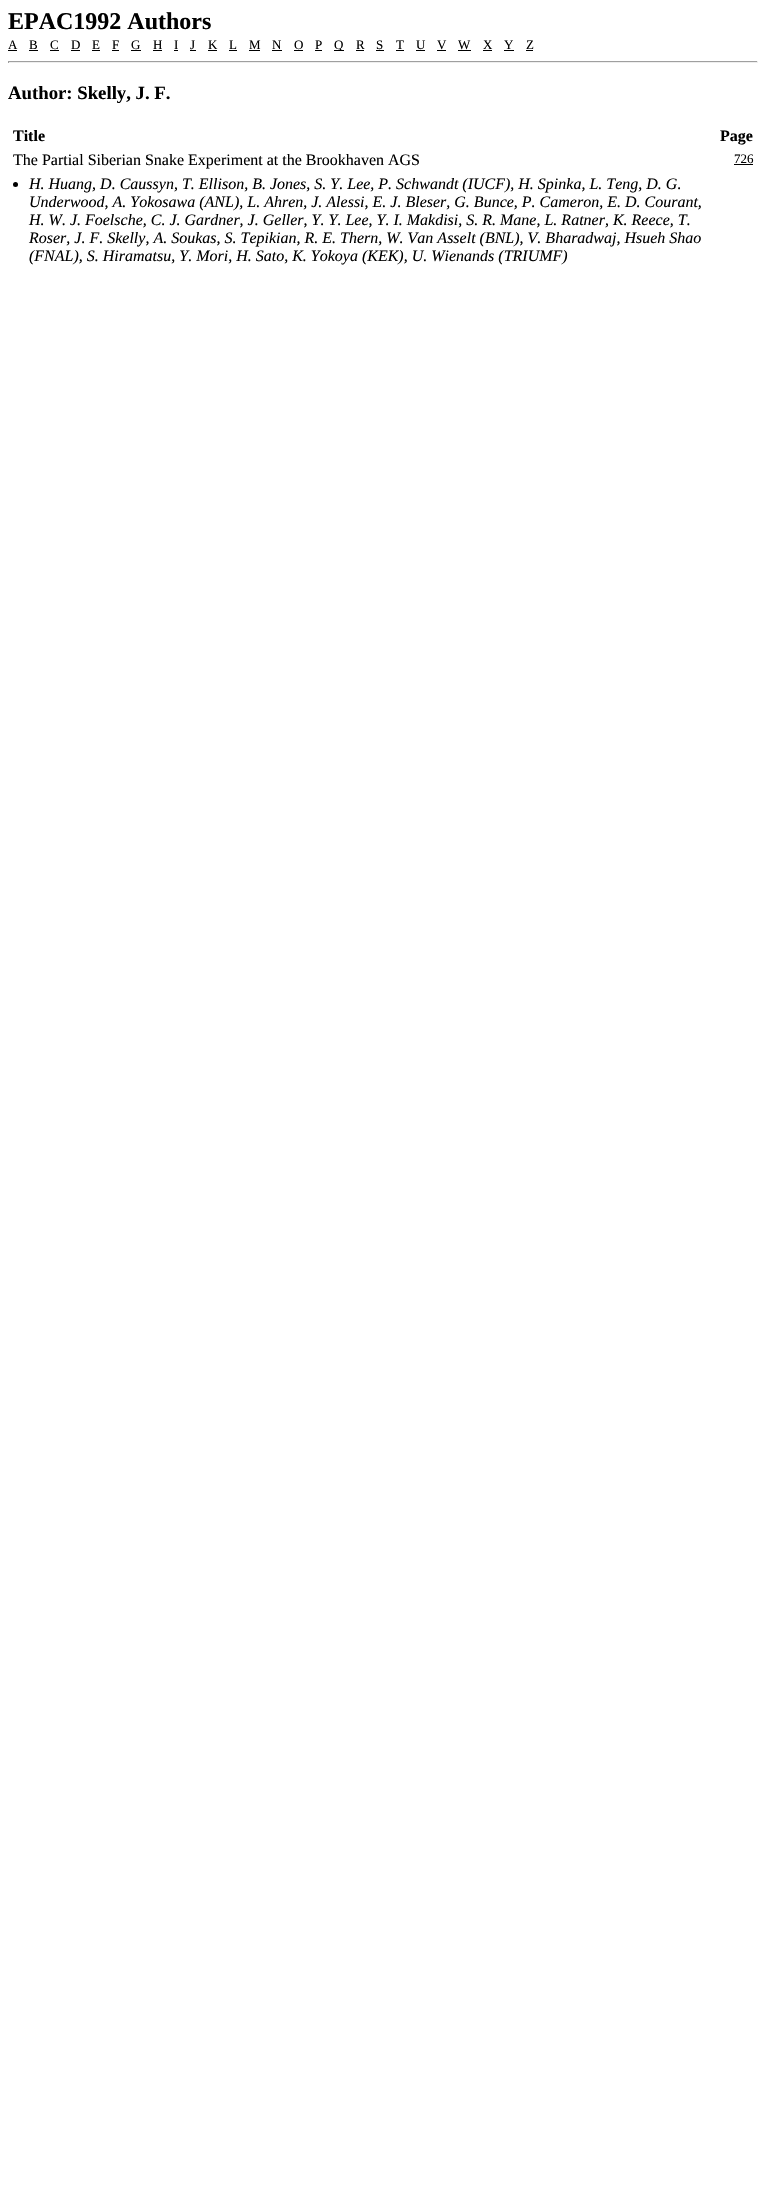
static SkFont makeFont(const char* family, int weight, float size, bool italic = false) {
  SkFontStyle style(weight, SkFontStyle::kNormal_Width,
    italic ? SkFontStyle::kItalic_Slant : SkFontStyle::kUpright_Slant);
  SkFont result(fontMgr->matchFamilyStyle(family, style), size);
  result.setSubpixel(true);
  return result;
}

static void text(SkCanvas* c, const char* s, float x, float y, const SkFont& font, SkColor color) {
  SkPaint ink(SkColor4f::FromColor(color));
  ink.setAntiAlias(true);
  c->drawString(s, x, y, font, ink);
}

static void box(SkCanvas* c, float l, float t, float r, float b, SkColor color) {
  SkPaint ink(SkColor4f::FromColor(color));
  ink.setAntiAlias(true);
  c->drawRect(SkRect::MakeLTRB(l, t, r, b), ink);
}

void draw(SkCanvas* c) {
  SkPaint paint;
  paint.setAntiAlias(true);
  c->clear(0xffffffff);
  SkFont face1 = makeFont("Liberation Serif", 700, 24);
  text(c, "EPAC1992 Authors", 8, 29, face1, 0xff000000);
  SkFont face2 = makeFont("Liberation Serif", 400, 13);
  text(c, "A", 8, 49, face2, 0xff000000);
  box(c, 8, 50, 17, 51, 0xff000000);
  text(c, "B", 29, 49, face2, 0xff000000);
  box(c, 29, 50, 38, 51, 0xff000000);
  text(c, "C", 50, 49, face2, 0xff000000);
  box(c, 50, 50, 59, 51, 0xff000000);
  text(c, "D", 71, 49, face2, 0xff000000);
  box(c, 71, 50, 80, 51, 0xff000000);
  text(c, "E", 92, 49, face2, 0xff000000);
  box(c, 92, 50, 100, 51, 0xff000000);
  text(c, "F", 112, 49, face2, 0xff000000);
  box(c, 112, 50, 119, 51, 0xff000000);
  text(c, "G", 131, 49, face2, 0xff000000);
  box(c, 131, 50, 141, 51, 0xff000000);
  text(c, "H", 153, 49, face2, 0xff000000);
  box(c, 153, 50, 162, 51, 0xff000000);
  text(c, "I", 174, 49, face2, 0xff000000);
  box(c, 174, 50, 178, 51, 0xff000000);
  text(c, "J", 190, 49, face2, 0xff000000);
  box(c, 190, 50, 196, 51, 0xff000000);
  text(c, "K", 208, 49, face2, 0xff000000);
  box(c, 208, 50, 217, 51, 0xff000000);
  text(c, "L", 229, 49, face2, 0xff000000);
  box(c, 229, 50, 237, 51, 0xff000000);
  text(c, "M", 249, 49, face2, 0xff000000);
  box(c, 249, 50, 260, 51, 0xff000000);
  text(c, "N", 272, 49, face2, 0xff000000);
  box(c, 272, 50, 282, 51, 0xff000000);
  text(c, "O", 294, 49, face2, 0xff000000);
  box(c, 294, 50, 303, 51, 0xff000000);
  text(c, "P", 315, 49, face2, 0xff000000);
  box(c, 315, 50, 322, 51, 0xff000000);
  box(c, 334, 50, 344, 51, 0xff000000);
  text(c, "Q", 334, 49, face2, 0xff000000);
  text(c, "R", 356, 49, face2, 0xff000000);
  box(c, 356, 50, 364, 51, 0xff000000);
  text(c, "S", 376, 49, face2, 0xff000000);
  box(c, 376, 50, 384, 51, 0xff000000);
  text(c, "T", 396, 49, face2, 0xff000000);
  box(c, 396, 50, 404, 51, 0xff000000);
  text(c, "U", 416, 49, face2, 0xff000000);
  box(c, 416, 50, 425, 51, 0xff000000);
  text(c, "V", 437, 49, face2, 0xff000000);
  box(c, 437, 50, 446, 51, 0xff000000);
  text(c, "W", 458, 49, face2, 0xff000000);
  box(c, 458, 50, 471, 51, 0xff000000);
  text(c, "X", 483, 49, face2, 0xff000000);
  box(c, 483, 50, 492, 51, 0xff000000);
  text(c, "Y", 504, 49, face2, 0xff000000);
  box(c, 504, 50, 514, 51, 0xff000000);
  text(c, "Z", 526, 49, face2, 0xff000000);
  box(c, 526, 50, 533, 51, 0xff000000);
  box(c, 8, 61, 758, 62, 0xff9f9f9f);
  box(c, 757, 61, 758, 63, 0xffeeeeee);
  box(c, 8, 62, 758, 63, 0xffeeeeee);
  box(c, 8, 61, 9, 63, 0xff9f9f9f);
  SkFont face3 = makeFont("Liberation Serif", 700, 18.75f);
  text(c, "Author: Skelly, J. F.", 8, 99, face3, 0xff000000);
  SkFont face4 = makeFont("Liberation Serif", 700, 16);
  text(c, "Title", 13, 141, face4, 0xff000000);
  text(c, "Page", 720, 141, face4, 0xff000000);
  SkFont face5 = makeFont("Liberation Serif", 400, 16);
  text(c, "The Partial Siberian Snake Experiment at the Brookhaven AGS", 13, 165, face5, 0xff000000);
  text(c, "726", 734, 163, face2, 0xff000000);
  box(c, 734, 164, 753, 165, 0xff000000);
  paint.setColor(0xff000000);
  c->drawCircle(15.5f, 184.5f, 2.5f, paint);
  SkFont face6 = makeFont("Liberation Serif", 400, 16, true);
  text(c, "H. Huang, D. Caussyn, T. Ellison, B. Jones, S. Y. Lee, P. Schwandt (IUCF), H. Spinka, L. Teng, D. G.", 29, 189, face6, 0xff000000);
  text(c, "Underwood, A. Yokosawa (ANL), L. Ahren, J. Alessi, E. J. Bleser, G. Bunce, P. Cameron, E. D. Courant,", 29, 207, face6, 0xff000000);
  text(c, "H. W. J. Foelsche, C. J. Gardner, J. Geller, Y. Y. Lee, Y. I. Makdisi, S. R. Mane, L. Ratner, K. Reece, T.", 29, 225, face6, 0xff000000);
  text(c, "Roser, J. F. Skelly, A. Soukas, S. Tepikian, R. E. Thern, W. Van Asselt (BNL), V. Bharadwaj, Hsueh Shao", 29, 243, face6, 0xff000000);
  text(c, "(FNAL), S. Hiramatsu, Y. Mori, H. Sato, K. Yokoya (KEK), U. Wienands (TRIUMF)", 29, 261, face6, 0xff000000);
}
